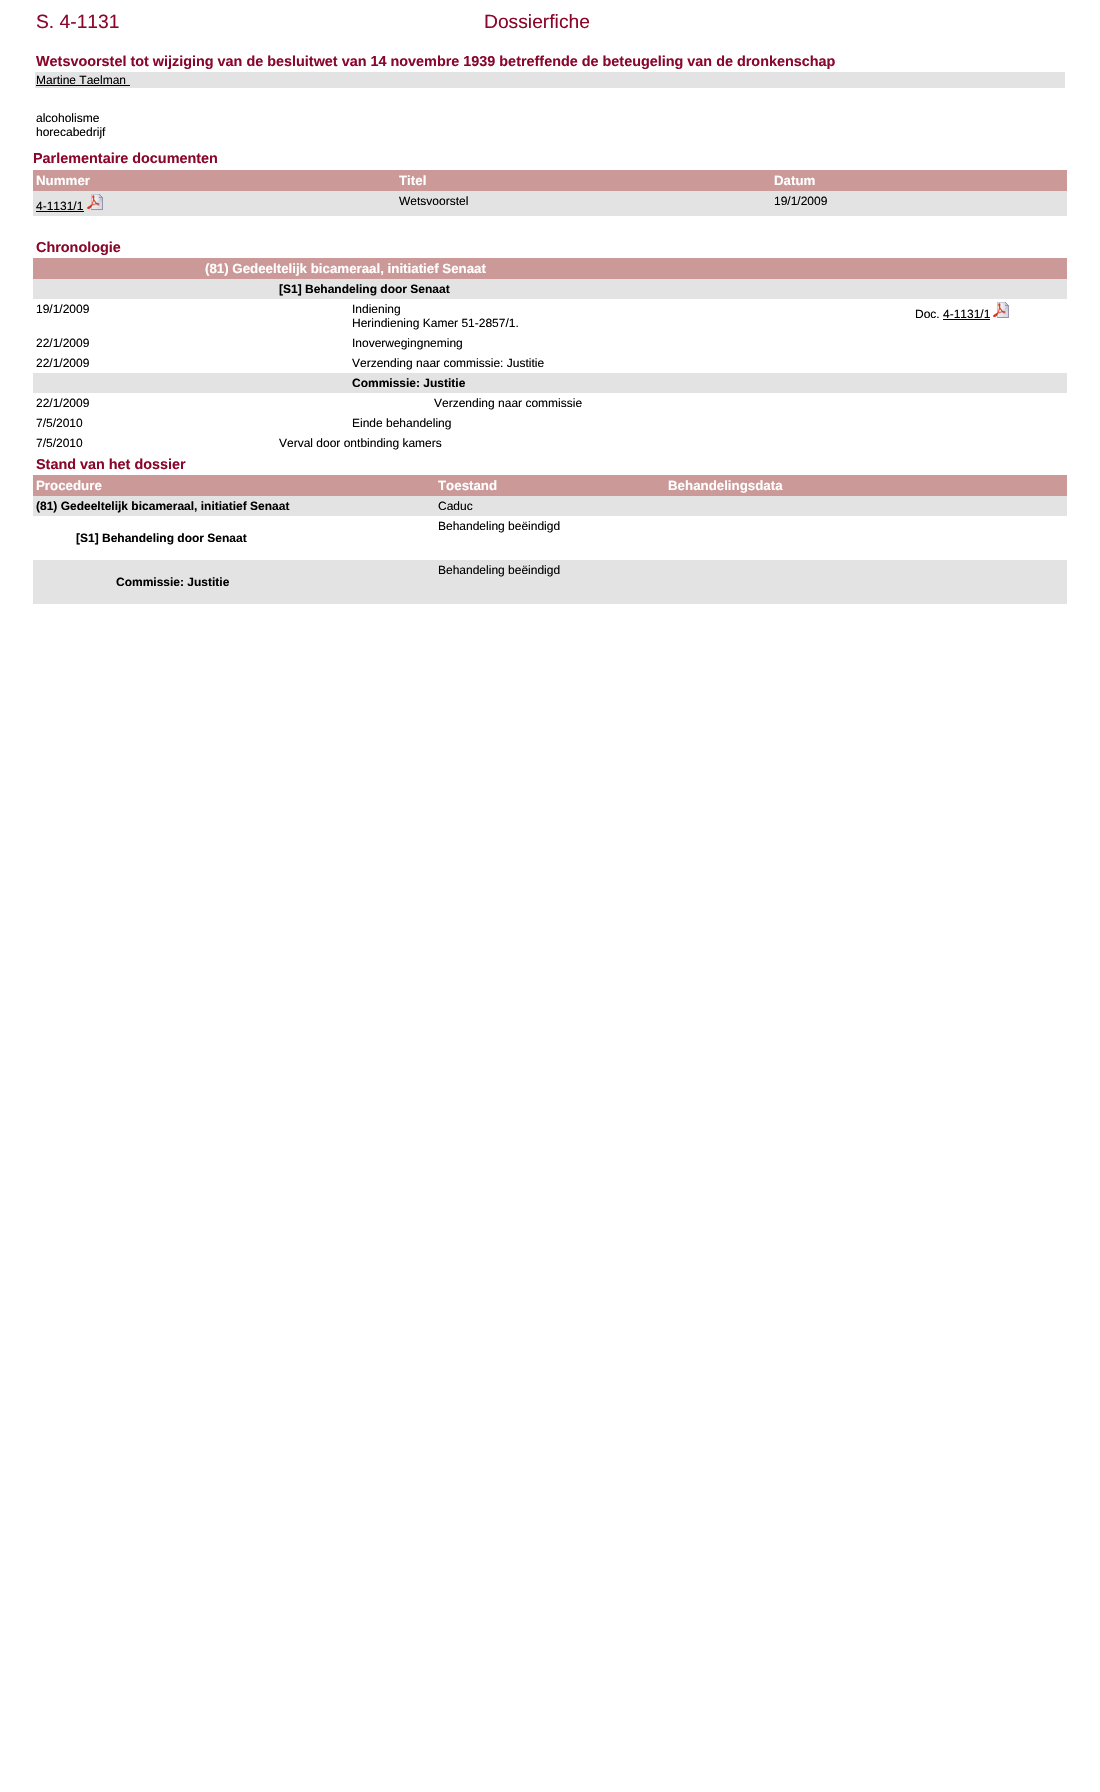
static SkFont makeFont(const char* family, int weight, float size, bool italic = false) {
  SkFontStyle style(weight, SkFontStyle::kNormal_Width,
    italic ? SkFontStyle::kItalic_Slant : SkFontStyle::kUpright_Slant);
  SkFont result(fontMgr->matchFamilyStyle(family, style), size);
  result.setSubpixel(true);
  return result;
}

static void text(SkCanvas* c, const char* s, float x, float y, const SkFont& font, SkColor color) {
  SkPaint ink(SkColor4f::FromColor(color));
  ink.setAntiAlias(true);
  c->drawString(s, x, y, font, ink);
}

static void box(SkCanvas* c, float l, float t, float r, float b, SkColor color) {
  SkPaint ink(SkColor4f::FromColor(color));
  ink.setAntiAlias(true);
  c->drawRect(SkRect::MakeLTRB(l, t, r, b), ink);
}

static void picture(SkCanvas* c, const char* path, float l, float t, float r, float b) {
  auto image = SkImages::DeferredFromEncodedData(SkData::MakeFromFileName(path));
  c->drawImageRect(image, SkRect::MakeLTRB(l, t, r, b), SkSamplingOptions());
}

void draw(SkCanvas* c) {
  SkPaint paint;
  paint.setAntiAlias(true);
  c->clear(0xffffffff);
  SkFont face1 = makeFont("Liberation Sans", 400, 19.25f);
  text(c, "S. 4-1131", 36, 28, face1, 0xff8a062b);
  text(c, "Dossierfiche", 484, 28, face1, 0xff8a062b);
  SkFont face2 = makeFont("Liberation Sans", 700, 14.4f);
  text(c, "Wetsvoorstel tot wijziging van de besluitwet van 14 novembre 1939 betreffende de beteugeling van de dronkenschap", 36, 66, face2, 0xff8a062b);
  box(c, 35, 72, 1065, 88, 0xffe3e3e3);
  SkFont face3 = makeFont("Liberation Sans", 400, 12);
  text(c, "Martine Taelman", 36, 84, face3, 0xff000000);
  box(c, 36, 85, 130, 86, 0xff000000);
  text(c, "alcoholisme", 36, 122, face3, 0xff000000);
  text(c, "horecabedrijf", 36, 136, face3, 0xff000000);
  text(c, "Parlementaire documenten", 33, 163, face2, 0xff8a062b);
  box(c, 33, 170, 1067, 191, 0xffcc9999);
  SkFont face4 = makeFont("Liberation Sans", 700, 13.3f);
  text(c, "Nummer", 36, 185, face4, 0xffffffff);
  text(c, "Titel", 399, 185, face4, 0xffffffff);
  text(c, "Datum", 774, 185, face4, 0xffffffff);
  box(c, 33, 191, 1067, 216, 0xffe3e3e3);
  text(c, "4-1131/1", 36, 210, face3, 0xff000000);
  box(c, 36, 211, 84, 212, 0xff000000);
  picture(c, "img_01.png", 87, 194, 103, 210);
  text(c, "Wetsvoorstel", 399, 205, face3, 0xff000000);
  text(c, "19/1/2009", 774, 205, face3, 0xff000000);
  text(c, "Chronologie", 36, 252, face2, 0xff8a062b);
  box(c, 33, 258, 1067, 279, 0xffcc9999);
  text(c, "(81) Gedeeltelijk bicameraal, initiatief Senaat", 205, 273, face4, 0xffffffff);
  box(c, 33, 279, 1067, 299, 0xffe3e3e3);
  SkFont face5 = makeFont("Liberation Sans", 700, 12);
  text(c, "[S1] Behandeling door Senaat", 279, 293, face5, 0xff000000);
  text(c, "19/1/2009", 36, 313, face3, 0xff000000);
  text(c, "Indiening", 352, 313, face3, 0xff000000);
  text(c, "Herindiening Kamer 51-2857/1.", 352, 327, face3, 0xff000000);
  text(c, "Doc. 4-1131/1", 915, 318, face3, 0xff000000);
  picture(c, "img_02.png", 993, 302, 1009, 318);
  box(c, 943, 319, 990, 320, 0xff000000);
  text(c, "22/1/2009", 36, 347, face3, 0xff000000);
  text(c, "Inoverwegingneming", 352, 347, face3, 0xff000000);
  text(c, "22/1/2009", 36, 367, face3, 0xff000000);
  text(c, "Verzending naar commissie: Justitie", 352, 367, face3, 0xff000000);
  box(c, 33, 373, 1067, 393, 0xffe3e3e3);
  text(c, "Commissie: Justitie", 352, 387, face5, 0xff000000);
  text(c, "22/1/2009", 36, 407, face3, 0xff000000);
  text(c, "Verzending naar commissie", 434, 407, face3, 0xff000000);
  text(c, "7/5/2010", 36, 427, face3, 0xff000000);
  text(c, "Einde behandeling", 352, 427, face3, 0xff000000);
  text(c, "7/5/2010", 36, 447, face3, 0xff000000);
  text(c, "Verval door ontbinding kamers", 279, 447, face3, 0xff000000);
  text(c, "Stand van het dossier", 36, 469, face2, 0xff8a062b);
  box(c, 33, 475, 1067, 496, 0xffcc9999);
  text(c, "Procedure", 36, 490, face4, 0xffffffff);
  text(c, "Toestand", 438, 490, face4, 0xffffffff);
  text(c, "Behandelingsdata", 668, 490, face4, 0xffffffff);
  box(c, 33, 496, 1067, 516, 0xffe3e3e3);
  text(c, "(81) Gedeeltelijk bicameraal, initiatief Senaat", 36, 510, face5, 0xff000000);
  text(c, "Caduc", 438, 510, face3, 0xff000000);
  text(c, "Behandeling beëindigd", 438, 530, face3, 0xff000000);
  text(c, "[S1] Behandeling door Senaat", 76, 542, face5, 0xff000000);
  box(c, 33, 560, 1067, 604, 0xffe3e3e3);
  text(c, "Behandeling beëindigd", 438, 574, face3, 0xff000000);
  text(c, "Commissie: Justitie", 116, 586, face5, 0xff000000);
}
